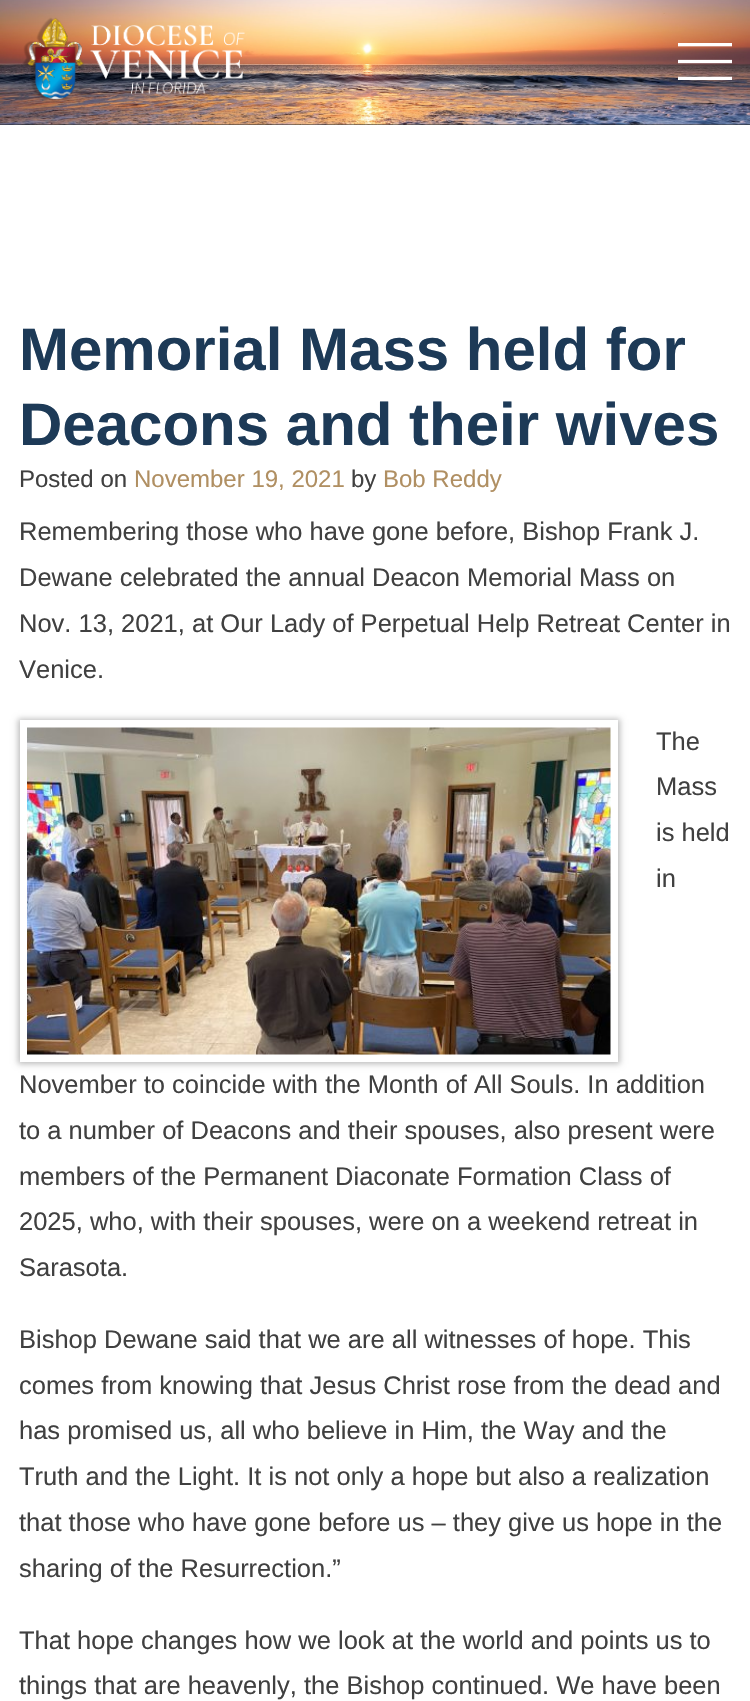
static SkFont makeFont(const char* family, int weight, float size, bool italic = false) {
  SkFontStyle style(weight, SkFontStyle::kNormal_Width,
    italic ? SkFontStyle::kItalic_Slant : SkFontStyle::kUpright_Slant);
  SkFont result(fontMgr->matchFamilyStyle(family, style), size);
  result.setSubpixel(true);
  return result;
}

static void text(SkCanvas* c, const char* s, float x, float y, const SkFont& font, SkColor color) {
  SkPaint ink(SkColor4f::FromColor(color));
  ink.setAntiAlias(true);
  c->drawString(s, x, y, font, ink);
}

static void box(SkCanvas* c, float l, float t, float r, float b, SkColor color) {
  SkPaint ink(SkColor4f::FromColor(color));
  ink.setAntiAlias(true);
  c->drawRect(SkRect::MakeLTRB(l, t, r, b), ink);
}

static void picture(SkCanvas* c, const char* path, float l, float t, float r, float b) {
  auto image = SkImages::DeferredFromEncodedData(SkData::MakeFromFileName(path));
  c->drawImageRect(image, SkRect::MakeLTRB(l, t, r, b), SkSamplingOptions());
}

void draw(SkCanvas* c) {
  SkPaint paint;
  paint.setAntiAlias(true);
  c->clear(0xffffffff);
  box(c, 0, 124, 750, 125, 0xff2d2d2d);
  picture(c, "img_01.png", 0, 0, 750, 125);
  picture(c, "img_02.png", 22, 17, 245, 100);
  picture(c, "img_03.png", 678, 43, 732, 80);
  SkFont face1 = makeFont("Liberation Sans", 700, 60);
  text(c, "Memorial Mass held for", 19, 370, face1, 0xff1d3a57);
  text(c, "Deacons and their wives", 19, 445, face1, 0xff1d3a57);
  SkFont face2 = makeFont("Liberation Sans", 400, 24);
  text(c, "Posted on", 19, 487, face2, 0xff404040);
  text(c, "November 19, 2021", 134, 487, face2, 0xffb08f62);
  text(c, "by", 351, 487, face2, 0xff404040);
  text(c, "Bob Reddy", 383, 487, face2, 0xffb08f62);
  SkFont face3 = makeFont("Liberation Sans", 400, 25.5f);
  text(c, "Remembering those who have gone before, Bishop Frank J.", 19, 540, face3, 0xff404040);
  text(c, "Dewane celebrated the annual Deacon Memorial Mass on", 19, 586, face3, 0xff404040);
  text(c, "Nov. 13, 2021, at Our Lady of Perpetual Help Retreat Center in", 19, 632, face3, 0xff404040);
  text(c, "Venice.", 19, 678, face3, 0xff404040);
  c->save();
  c->clipPath(SkPathBuilder(SkPathFillType::kEvenOdd).moveTo(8, 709).lineTo(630, 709).lineTo(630, 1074).lineTo(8, 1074).close().moveTo(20, 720).lineTo(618, 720).lineTo(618, 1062).lineTo(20, 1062).close().detach(), true);
  paint.setColor(0xffbbbbbb);
  paint.setMaskFilter(SkMaskFilter::MakeBlur(kNormal_SkBlurStyle, 3));
  c->drawRect(SkRect::MakeLTRB(18, 719, 620, 1064), paint);
  paint.setMaskFilter(nullptr);
  c->restore();
  picture(c, "img_04.png", 27, 727, 611, 1055);
  text(c, "The", 656, 750, face3, 0xff404040);
  text(c, "Mass", 656, 795, face3, 0xff404040);
  text(c, "is held", 656, 841, face3, 0xff404040);
  text(c, "in", 656, 887, face3, 0xff404040);
  text(c, "November to coincide with the Month of All Souls. In addition", 19, 1093, face3, 0xff404040);
  text(c, "to a number of Deacons and their spouses, also present were", 19, 1139, face3, 0xff404040);
  text(c, "members of the Permanent Diaconate Formation Class of", 19, 1185, face3, 0xff404040);
  text(c, "2025, who, with their spouses, were on a weekend retreat in", 19, 1230, face3, 0xff404040);
  text(c, "Sarasota.", 19, 1276, face3, 0xff404040);
  text(c, "Bishop Dewane said that we are all witnesses of hope. This", 19, 1348, face3, 0xff404040);
  text(c, "comes from knowing that Jesus Christ rose from the dead and", 19, 1394, face3, 0xff404040);
  text(c, "has promised us, all who believe in Him, the Way and the", 19, 1439, face3, 0xff404040);
  text(c, "Truth and the Light. It is not only a hope but also a realization", 19, 1485, face3, 0xff404040);
  text(c, "that those who have gone before us – they give us hope in the", 19, 1531, face3, 0xff404040);
  text(c, "sharing of the Resurrection.”", 19, 1577, face3, 0xff404040);
  text(c, "That hope changes how we look at the world and points us to", 19, 1649, face3, 0xff404040);
  text(c, "things that are heavenly, the Bishop continued. We have been", 19, 1694, face3, 0xff404040);
}
